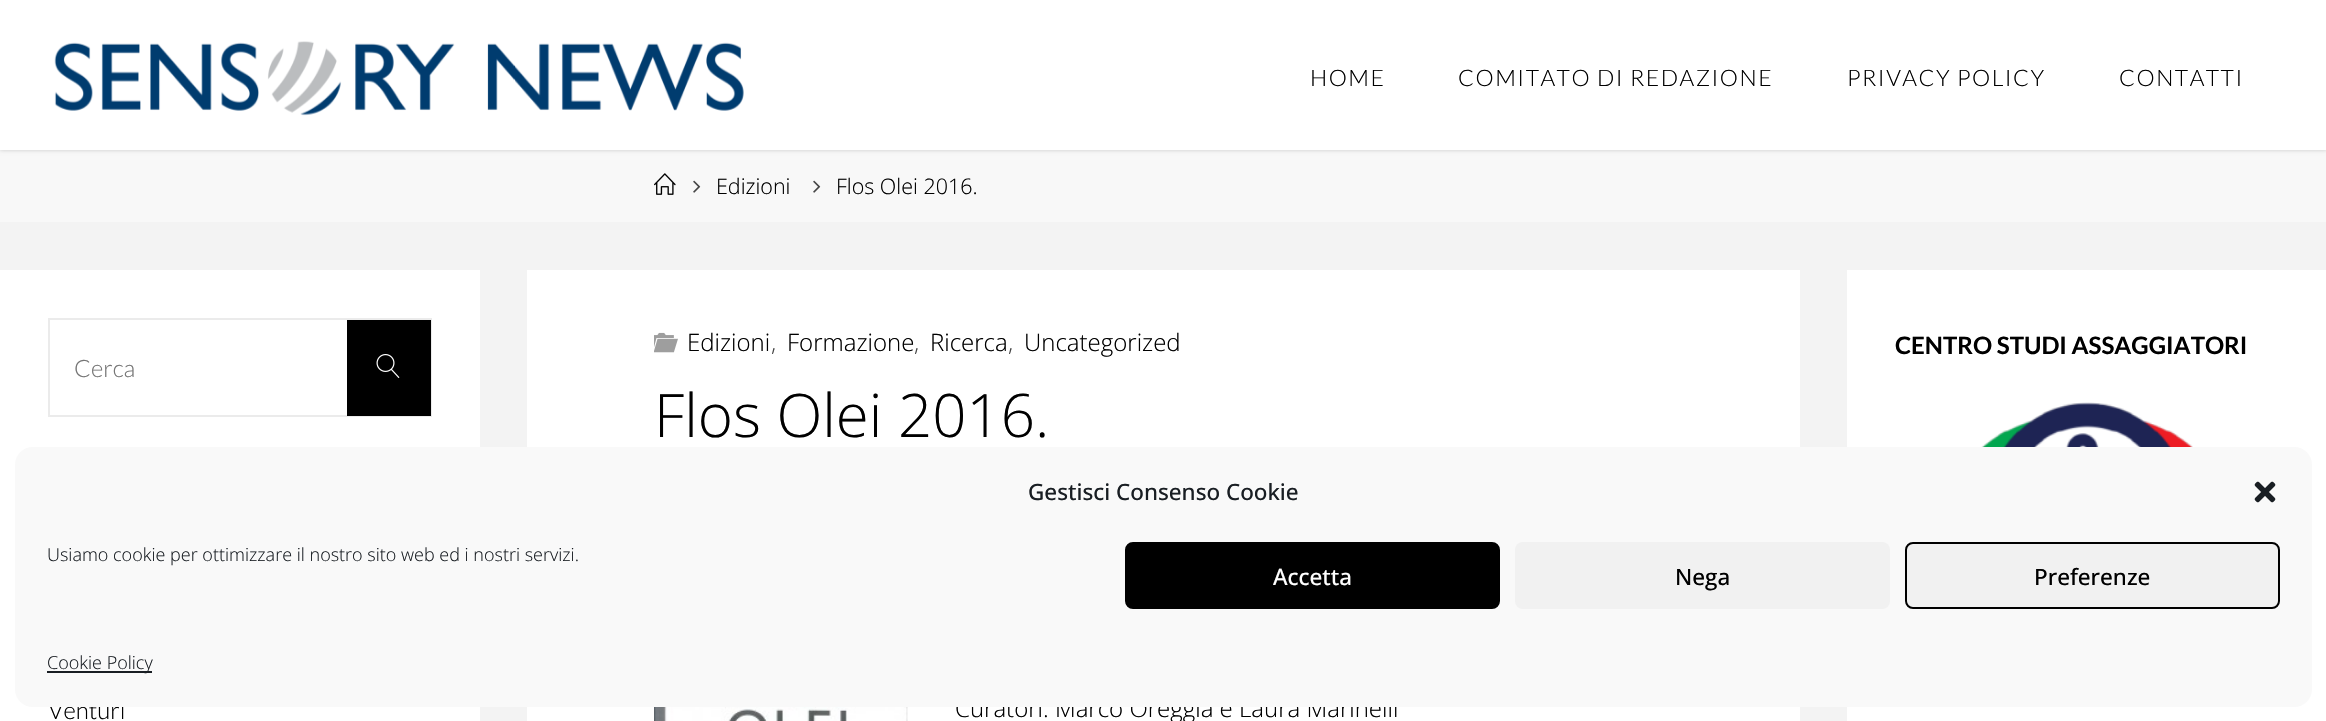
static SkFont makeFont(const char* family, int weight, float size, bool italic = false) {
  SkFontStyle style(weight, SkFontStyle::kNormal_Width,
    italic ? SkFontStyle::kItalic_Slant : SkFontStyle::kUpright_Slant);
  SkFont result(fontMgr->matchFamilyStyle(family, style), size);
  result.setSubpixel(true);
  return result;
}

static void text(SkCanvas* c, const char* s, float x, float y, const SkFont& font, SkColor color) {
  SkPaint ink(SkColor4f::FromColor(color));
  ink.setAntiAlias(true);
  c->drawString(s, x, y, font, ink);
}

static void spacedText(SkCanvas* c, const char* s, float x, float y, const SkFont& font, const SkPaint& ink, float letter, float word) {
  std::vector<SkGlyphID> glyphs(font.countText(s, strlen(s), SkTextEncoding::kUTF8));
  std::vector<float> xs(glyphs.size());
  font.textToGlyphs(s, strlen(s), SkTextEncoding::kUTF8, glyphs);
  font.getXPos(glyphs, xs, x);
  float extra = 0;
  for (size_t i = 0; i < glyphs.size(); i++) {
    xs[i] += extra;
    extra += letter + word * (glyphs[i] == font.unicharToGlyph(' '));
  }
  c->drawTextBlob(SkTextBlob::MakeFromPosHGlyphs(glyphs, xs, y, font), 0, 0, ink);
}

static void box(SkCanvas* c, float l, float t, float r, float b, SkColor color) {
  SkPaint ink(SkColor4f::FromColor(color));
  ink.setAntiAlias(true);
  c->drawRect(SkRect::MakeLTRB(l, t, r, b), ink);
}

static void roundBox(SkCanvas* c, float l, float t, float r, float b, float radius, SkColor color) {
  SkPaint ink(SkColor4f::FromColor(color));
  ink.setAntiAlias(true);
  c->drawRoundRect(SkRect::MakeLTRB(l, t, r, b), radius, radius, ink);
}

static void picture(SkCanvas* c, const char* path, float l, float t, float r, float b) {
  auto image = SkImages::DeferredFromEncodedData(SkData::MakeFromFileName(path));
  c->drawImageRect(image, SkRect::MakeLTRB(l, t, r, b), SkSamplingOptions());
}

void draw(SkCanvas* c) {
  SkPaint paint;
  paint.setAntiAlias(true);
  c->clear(0xfff3f3f3);
  box(c, 0, 150, 2326, 222, 0xfff8f8f8);
  paint.setColor(0x33000000);
  paint.setMaskFilter(SkMaskFilter::MakeBlur(kNormal_SkBlurStyle, 2));
  c->drawRect(SkRect::MakeLTRB(0, 0, 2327, 150), paint);
  paint.setMaskFilter(nullptr);
  box(c, 0, 0, 2326, 150, 0xffffffff);
  picture(c, "img_01.png", 54, 41, 744, 116);
  SkFont face1 = makeFont("Lato", 300, 22.75f);
  paint.setColor(0xff000000);
  spacedText(c, "HOME", 1310, 86, face1, paint, 1.5f, 0);
  spacedText(c, "COMITATO DI REDAZIONE", 1458, 86, face1, paint, 1.5f, 0);
  spacedText(c, "PRIVACY POLICY", 1847, 86, face1, paint, 1.5f, 0);
  spacedText(c, "CONTATTI", 2119, 86, face1, paint, 1.5f, 0);
  picture(c, "img_02.png", 654, 173, 676, 195);
  picture(c, "img_03.png", 693, 180, 701, 193);
  SkFont face2 = makeFont("Open Sans", 300, 21.5f);
  text(c, "Edizioni", 716, 194, face2, 0xff000000);
  picture(c, "img_03.png", 813, 180, 821, 193);
  text(c, "Flos Olei 2016.", 836, 194, face2, 0xff000000);
  box(c, 527, 270, 1800, 721, 0xffffffff);
  picture(c, "img_04.png", 654, 332, 678, 353);
  SkFont face3 = makeFont("Open Sans", 300, 24);
  text(c, "Edizioni", 687, 351, face3, 0xff000000);
  text(c, ",", 771, 351, face3, 0xff454545);
  text(c, "Formazione", 787, 351, face3, 0xff000000);
  text(c, ",", 914, 351, face3, 0xff454545);
  text(c, "Ricerca", 930, 351, face3, 0xff000000);
  text(c, ",", 1008, 351, face3, 0xff454545);
  text(c, "Uncategorized", 1024, 351, face3, 0xff000000);
  SkFont face4 = makeFont("Open Sans", 300, 60);
  text(c, "Flos Olei 2016.", 654, 437, face4, 0xff000000);
  picture(c, "img_05.png", 654, 707, 908, 721);
  text(c, "Curatori: Marco Oreggia e Laura Marinelli", 955, 717, face3, 0xff000000);
  box(c, 1847, 270, 2326, 721, 0xffffffff);
  SkFont face5 = makeFont("Lato", 700, 24);
  text(c, "CENTRO STUDI ASSAGGIATORI", 1895, 354, face5, 0xff000000);
  picture(c, "img_06.png", 1981, 402, 2193, 447);
  box(c, 0, 270, 480, 721, 0xffffffff);
  paint.setStyle(SkPaint::kStroke_Style);
  paint.setStrokeWidth(2);
  paint.setColor(0xffebebeb);
  c->drawRect(SkRect::MakeLTRB(49, 319, 431, 416), paint);
  box(c, 347, 320, 431, 416, 0xff000000);
  SkFont face6 = makeFont("Lato", 300, 24);
  text(c, "Cerca", 74, 377, face6, 0xff757575);
  picture(c, "img_07.png", 376, 354, 400, 378);
  text(c, "Venturi", 48, 719, face6, 0xff000000);
  roundBox(c, 15, 447, 2312, 707, 18, 0xfff9f9f9);
  SkFont face7 = makeFont("Open Sans", 500, 22.5f);
  text(c, "Gestisci Consenso Cookie", 1028, 500, face7, 0xff191e23);
  picture(c, "img_08.png", 2254, 481, 2276, 503);
  SkFont face8 = makeFont("Open Sans", 300, 18);
  text(c, "Usiamo cookie per ottimizzare il nostro sito web ed i nostri servizi.", 47, 561, face8, 0xff191e23);
  paint.setStyle(SkPaint::kFill_Style);
  paint.setColor(0xff000000);
  c->drawRoundRect(SkRect::MakeLTRB(1126, 543, 1499, 608), 7, 7, paint);
  paint.setStyle(SkPaint::kStroke_Style);
  c->drawRoundRect(SkRect::MakeLTRB(1126, 543, 1499, 608), 7, 7, paint);
  text(c, "Accetta", 1273, 585, face7, 0xffffffff);
  roundBox(c, 1515, 542, 1890, 609, 8, 0xfff1f1f1);
  text(c, "Nega", 1675, 585, face7, 0xff000000);
  paint.setStyle(SkPaint::kFill_Style);
  paint.setColor(0xfff1f1f1);
  c->drawRoundRect(SkRect::MakeLTRB(1906, 543, 2279, 608), 7, 7, paint);
  paint.setStyle(SkPaint::kStroke_Style);
  paint.setColor(0xff000000);
  c->drawRoundRect(SkRect::MakeLTRB(1906, 543, 2279, 608), 7, 7, paint);
  text(c, "Preferenze", 2034, 585, face7, 0xff000000);
  box(c, 47, 671, 152, 673, 0xff191e23);
  text(c, "Cookie Policy", 47, 669, face8, 0xff191e23);
}
